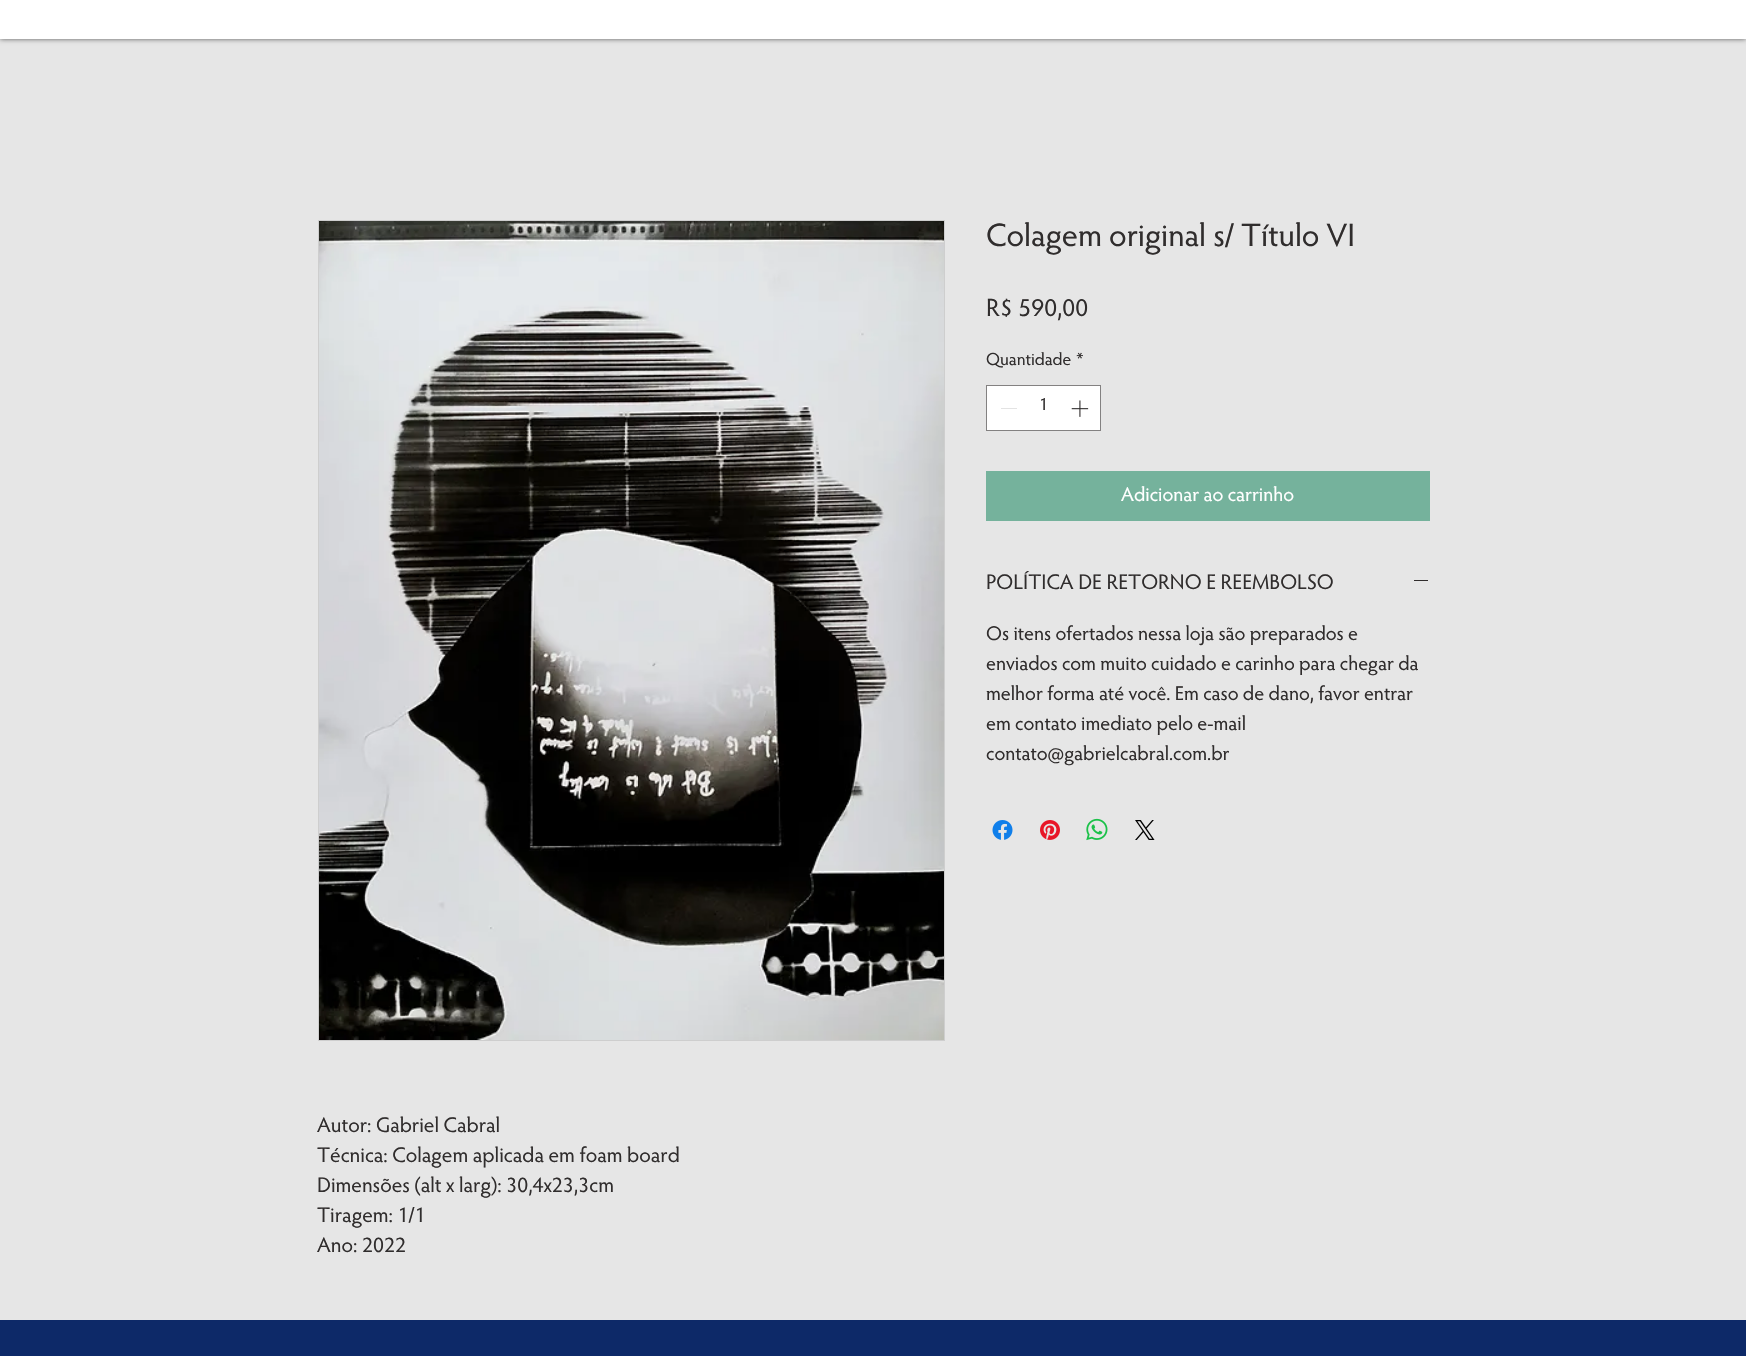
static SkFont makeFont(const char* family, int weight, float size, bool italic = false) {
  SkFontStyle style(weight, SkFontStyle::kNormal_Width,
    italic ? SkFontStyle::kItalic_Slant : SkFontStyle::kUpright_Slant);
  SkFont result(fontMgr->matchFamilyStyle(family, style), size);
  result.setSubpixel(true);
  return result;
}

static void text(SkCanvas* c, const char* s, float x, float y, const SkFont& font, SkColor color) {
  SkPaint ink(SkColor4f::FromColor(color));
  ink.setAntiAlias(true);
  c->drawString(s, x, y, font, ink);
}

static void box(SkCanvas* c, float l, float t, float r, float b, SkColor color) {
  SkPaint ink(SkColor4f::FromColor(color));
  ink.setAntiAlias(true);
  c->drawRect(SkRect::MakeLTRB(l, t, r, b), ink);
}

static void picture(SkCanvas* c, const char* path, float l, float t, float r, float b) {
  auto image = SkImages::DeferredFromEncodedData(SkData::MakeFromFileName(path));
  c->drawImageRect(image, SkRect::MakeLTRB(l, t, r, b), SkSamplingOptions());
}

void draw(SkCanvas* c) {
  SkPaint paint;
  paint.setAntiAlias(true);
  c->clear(0xffe6e6e6);
  paint.setColor(0x99000000);
  paint.setMaskFilter(SkMaskFilter::MakeBlur(kNormal_SkBlurStyle, 2.5f));
  c->drawRect(SkRect::MakeLTRB(0, -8, 1746, 39), paint);
  paint.setMaskFilter(nullptr);
  box(c, 0, 0, 1746, 39, 0xffffffff);
  SkFont face1 = makeFont("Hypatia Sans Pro", 400, 32.5f);
  text(c, "Colagem original s/ Título VI", 986, 246, face1, 0xff302d2d);
  SkFont face2 = makeFont("Hypatia Sans Pro", 400, 25);
  text(c, "R$ 590,00", 986, 316, face2, 0xff302d2d);
  SkFont face3 = makeFont("Hypatia Sans Pro", 400, 17.5f);
  text(c, "Quantidade", 986, 365, face3, 0xff302d2d);
  text(c, "*", 1076, 365, face3, 0xff302d2d);
  paint.setColor(0xffffffff);
  c->drawRect(SkRect::MakeLTRB(986.5f, 385.5f, 1100.5f, 430.5f), paint);
  paint.setStyle(SkPaint::kStroke_Style);
  paint.setStrokeWidth(1);
  paint.setColor(0xff838181);
  c->drawRect(SkRect::MakeLTRB(986.5f, 385.5f, 1100.5f, 430.5f), paint);
  box(c, 1001, 408, 1017, 409, 0xffe3e3e3);
  text(c, "1", 1039, 410, face3, 0xff302d2d);
  picture(c, "img_01.png", 1071, 400, 1089, 417);
  box(c, 986, 471, 1430, 521, 0xff75b29c);
  SkFont face4 = makeFont("Hypatia Sans Pro", 400, 20);
  text(c, "Adicionar ao carrinho", 1121, 501, face4, 0xffffffff);
  SkFont face5 = makeFont("Hypatia Sans Pro", 400, 21.25f);
  text(c, "POLÍTICA DE RETORNO E REEMBOLSO", 986, 589, face5, 0xff302d2d);
  box(c, 1414, 580, 1428, 581, 0xff302d2d);
  text(c, "Os itens ofertados nessa loja são preparados e", 986, 640, face4, 0xff302d2d);
  text(c, "enviados com muito cuidado e carinho para chegar da", 986, 670, face4, 0xff302d2d);
  text(c, "melhor forma até você. Em caso de dano, favor entrar", 986, 700, face4, 0xff302d2d);
  text(c, "em contato imediato pelo e-mail", 986, 730, face4, 0xff302d2d);
  text(c, "contato@gabrielcabral.com.br", 986, 760, face4, 0xff302d2d);
  picture(c, "img_02.png", 992, 820, 1013, 840);
  picture(c, "img_03.png", 1040, 820, 1060, 840);
  picture(c, "img_04.png", 1086, 818, 1108, 841);
  picture(c, "img_05.png", 1135, 820, 1155, 840);
  paint.setColor(0xffcecece);
  c->drawRect(SkRect::MakeLTRB(318.5f, 220.5f, 944.5f, 1040.5f), paint);
  picture(c, "img_06.png", 319, 221, 944, 1040);
  text(c, "Autor: Gabriel Cabral", 317, 1132, face5, 0xff302d2d);
  text(c, "Técnica: Colagem aplicada em foam board", 317, 1162, face5, 0xff302d2d);
  text(c, "Dimensões (alt x larg): 30,4x23,3cm", 317, 1192, face5, 0xff302d2d);
  text(c, "Tiragem: 1/1", 317, 1222, face5, 0xff302d2d);
  text(c, "Ano: 2022", 317, 1252, face5, 0xff302d2d);
  box(c, 0, 1320, 1746, 1356, 0xff0d2968);
}
